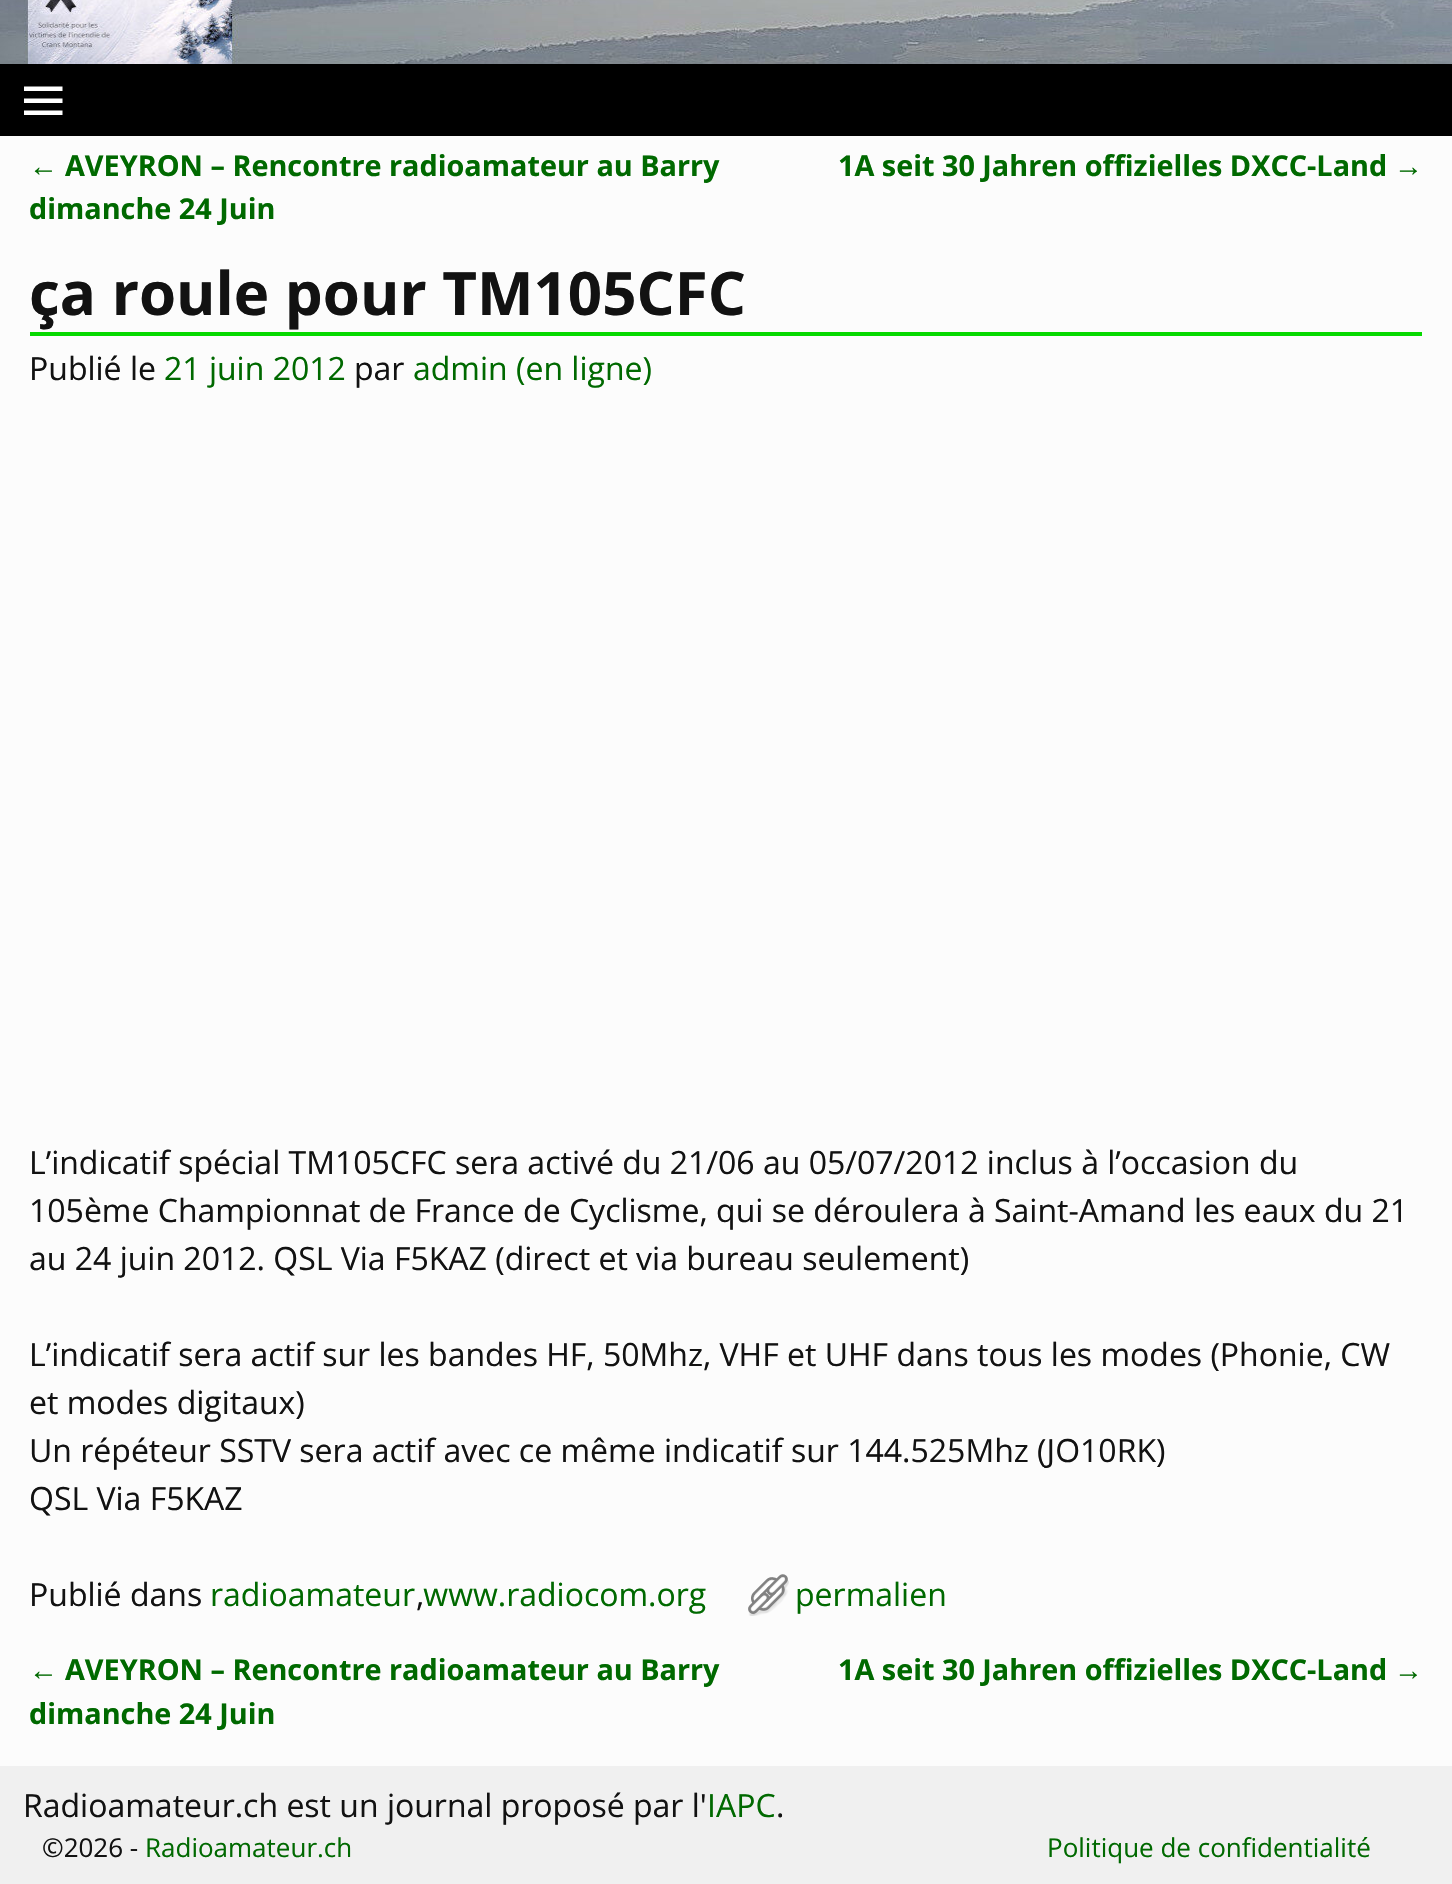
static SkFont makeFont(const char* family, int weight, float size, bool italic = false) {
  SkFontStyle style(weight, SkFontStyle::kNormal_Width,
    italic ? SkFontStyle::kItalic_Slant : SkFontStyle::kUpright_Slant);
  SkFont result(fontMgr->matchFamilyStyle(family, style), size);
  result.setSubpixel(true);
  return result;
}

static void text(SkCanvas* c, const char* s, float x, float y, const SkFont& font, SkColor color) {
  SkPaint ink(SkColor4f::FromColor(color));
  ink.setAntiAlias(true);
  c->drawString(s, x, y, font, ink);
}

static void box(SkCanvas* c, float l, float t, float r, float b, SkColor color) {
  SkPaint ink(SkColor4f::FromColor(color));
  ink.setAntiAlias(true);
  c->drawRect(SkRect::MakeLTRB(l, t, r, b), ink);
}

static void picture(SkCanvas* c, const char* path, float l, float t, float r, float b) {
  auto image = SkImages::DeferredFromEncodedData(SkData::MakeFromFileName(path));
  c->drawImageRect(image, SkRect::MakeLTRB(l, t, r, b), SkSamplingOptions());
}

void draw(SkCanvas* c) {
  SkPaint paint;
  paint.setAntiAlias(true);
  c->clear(0xfffcfcfc);
  picture(c, "img_01.png", 0, 0, 1452, 64);
  box(c, 0, 64, 1452, 136, 0xff000000);
  paint.setColor(0xffffffff);
  c->drawPath(SkPathBuilder().moveTo(24, 115).lineTo(24, 110.5f).lineTo(62.5f, 110.5f).lineTo(62.5f, 115).close().moveTo(24, 86.5f).lineTo(62.5f, 86.5f).lineTo(62.5f, 91).lineTo(24, 91).close().moveTo(24, 103).lineTo(24, 98.5f).lineTo(62.5f, 98.5f).lineTo(62.5f, 103).close().detach(), paint);
  SkFont face1 = makeFont("Liberation Sans", 400, 28.8f);
  text(c, "←", 29, 176, face1, 0xff006900);
  SkFont face2 = makeFont("Open Sans", 700, 28.8f);
  text(c, "AVEYRON – Rencontre radioamateur au Barry", 65, 176, face2, 0xff006900);
  text(c, "dimanche 24 Juin", 29, 219, face2, 0xff006900);
  text(c, "1A seit 30 Jahren offizielles DXCC-Land", 838, 176, face2, 0xff006900);
  text(c, "→", 1394, 176, face1, 0xff006900);
  box(c, 30, 332, 1422, 336, 0xff07d900);
  SkFont face3 = makeFont("Open Sans", 700, 60);
  text(c, "ça roule pour TM105CFC", 29, 315, face3, 0xff121212);
  SkFont face4 = makeFont("Open Sans", 400, 32);
  text(c, "Publié le", 29, 380, face4, 0xff121212);
  text(c, "21 juin 2012", 164, 380, face4, 0xff006900);
  text(c, "par", 354, 380, face4, 0xff121212);
  text(c, "admin (en ligne)", 413, 380, face4, 0xff006900);
  text(c, "L’indicatif spécial TM105CFC sera activé du 21/06 au 05/07/2012 inclus à l’occasion du", 29, 1174, face4, 0xff121212);
  text(c, "105ème Championnat de France de Cyclisme, qui se déroulera à Saint-Amand les eaux du 21", 29, 1222, face4, 0xff121212);
  text(c, "au 24 juin 2012. QSL Via F5KAZ (direct et via bureau seulement)", 29, 1270, face4, 0xff121212);
  text(c, "L’indicatif sera actif sur les bandes HF, 50Mhz, VHF et UHF dans tous les modes (Phonie, CW", 29, 1366, face4, 0xff121212);
  text(c, "et modes digitaux)", 29, 1414, face4, 0xff121212);
  text(c, "Un répéteur SSTV sera actif avec ce même indicatif sur 144.525Mhz (JO10RK)", 29, 1462, face4, 0xff121212);
  text(c, "QSL Via F5KAZ", 29, 1510, face4, 0xff121212);
  text(c, "Publié dans", 29, 1606, face4, 0xff121212);
  text(c, "radioamateur www.radiocom.org", 210, 1606, face4, 0xff006900);
  picture(c, "img_02.png", 748, 1574, 789, 1616);
  text(c, "permalien", 795, 1606, face4, 0xff006900);
  text(c, ",", 416, 1606, face4, 0xff121212);
  text(c, "←", 29, 1680, face1, 0xff006900);
  text(c, "AVEYRON – Rencontre radioamateur au Barry", 65, 1680, face2, 0xff006900);
  text(c, "dimanche 24 Juin", 29, 1724, face2, 0xff006900);
  text(c, "1A seit 30 Jahren offizielles DXCC-Land", 838, 1680, face2, 0xff006900);
  text(c, "→", 1394, 1680, face1, 0xff006900);
  box(c, 0, 1766, 1452, 1884, 0xfff0f0f0);
  text(c, "Radioamateur.ch est un journal proposé par l'", 23, 1817, face4, 0xff121212);
  text(c, "IAPC", 707, 1817, face4, 0xff006900);
  text(c, ".", 776, 1817, face4, 0xff121212);
  SkFont face5 = makeFont("Open Sans", 400, 26);
  text(c, "©2026 -", 42, 1857, face5, 0xff121212);
  text(c, "Radioamateur.ch", 145, 1857, face5, 0xff006900);
  text(c, "Politique de confidentialité", 1047, 1857, face5, 0xff006900);
}
